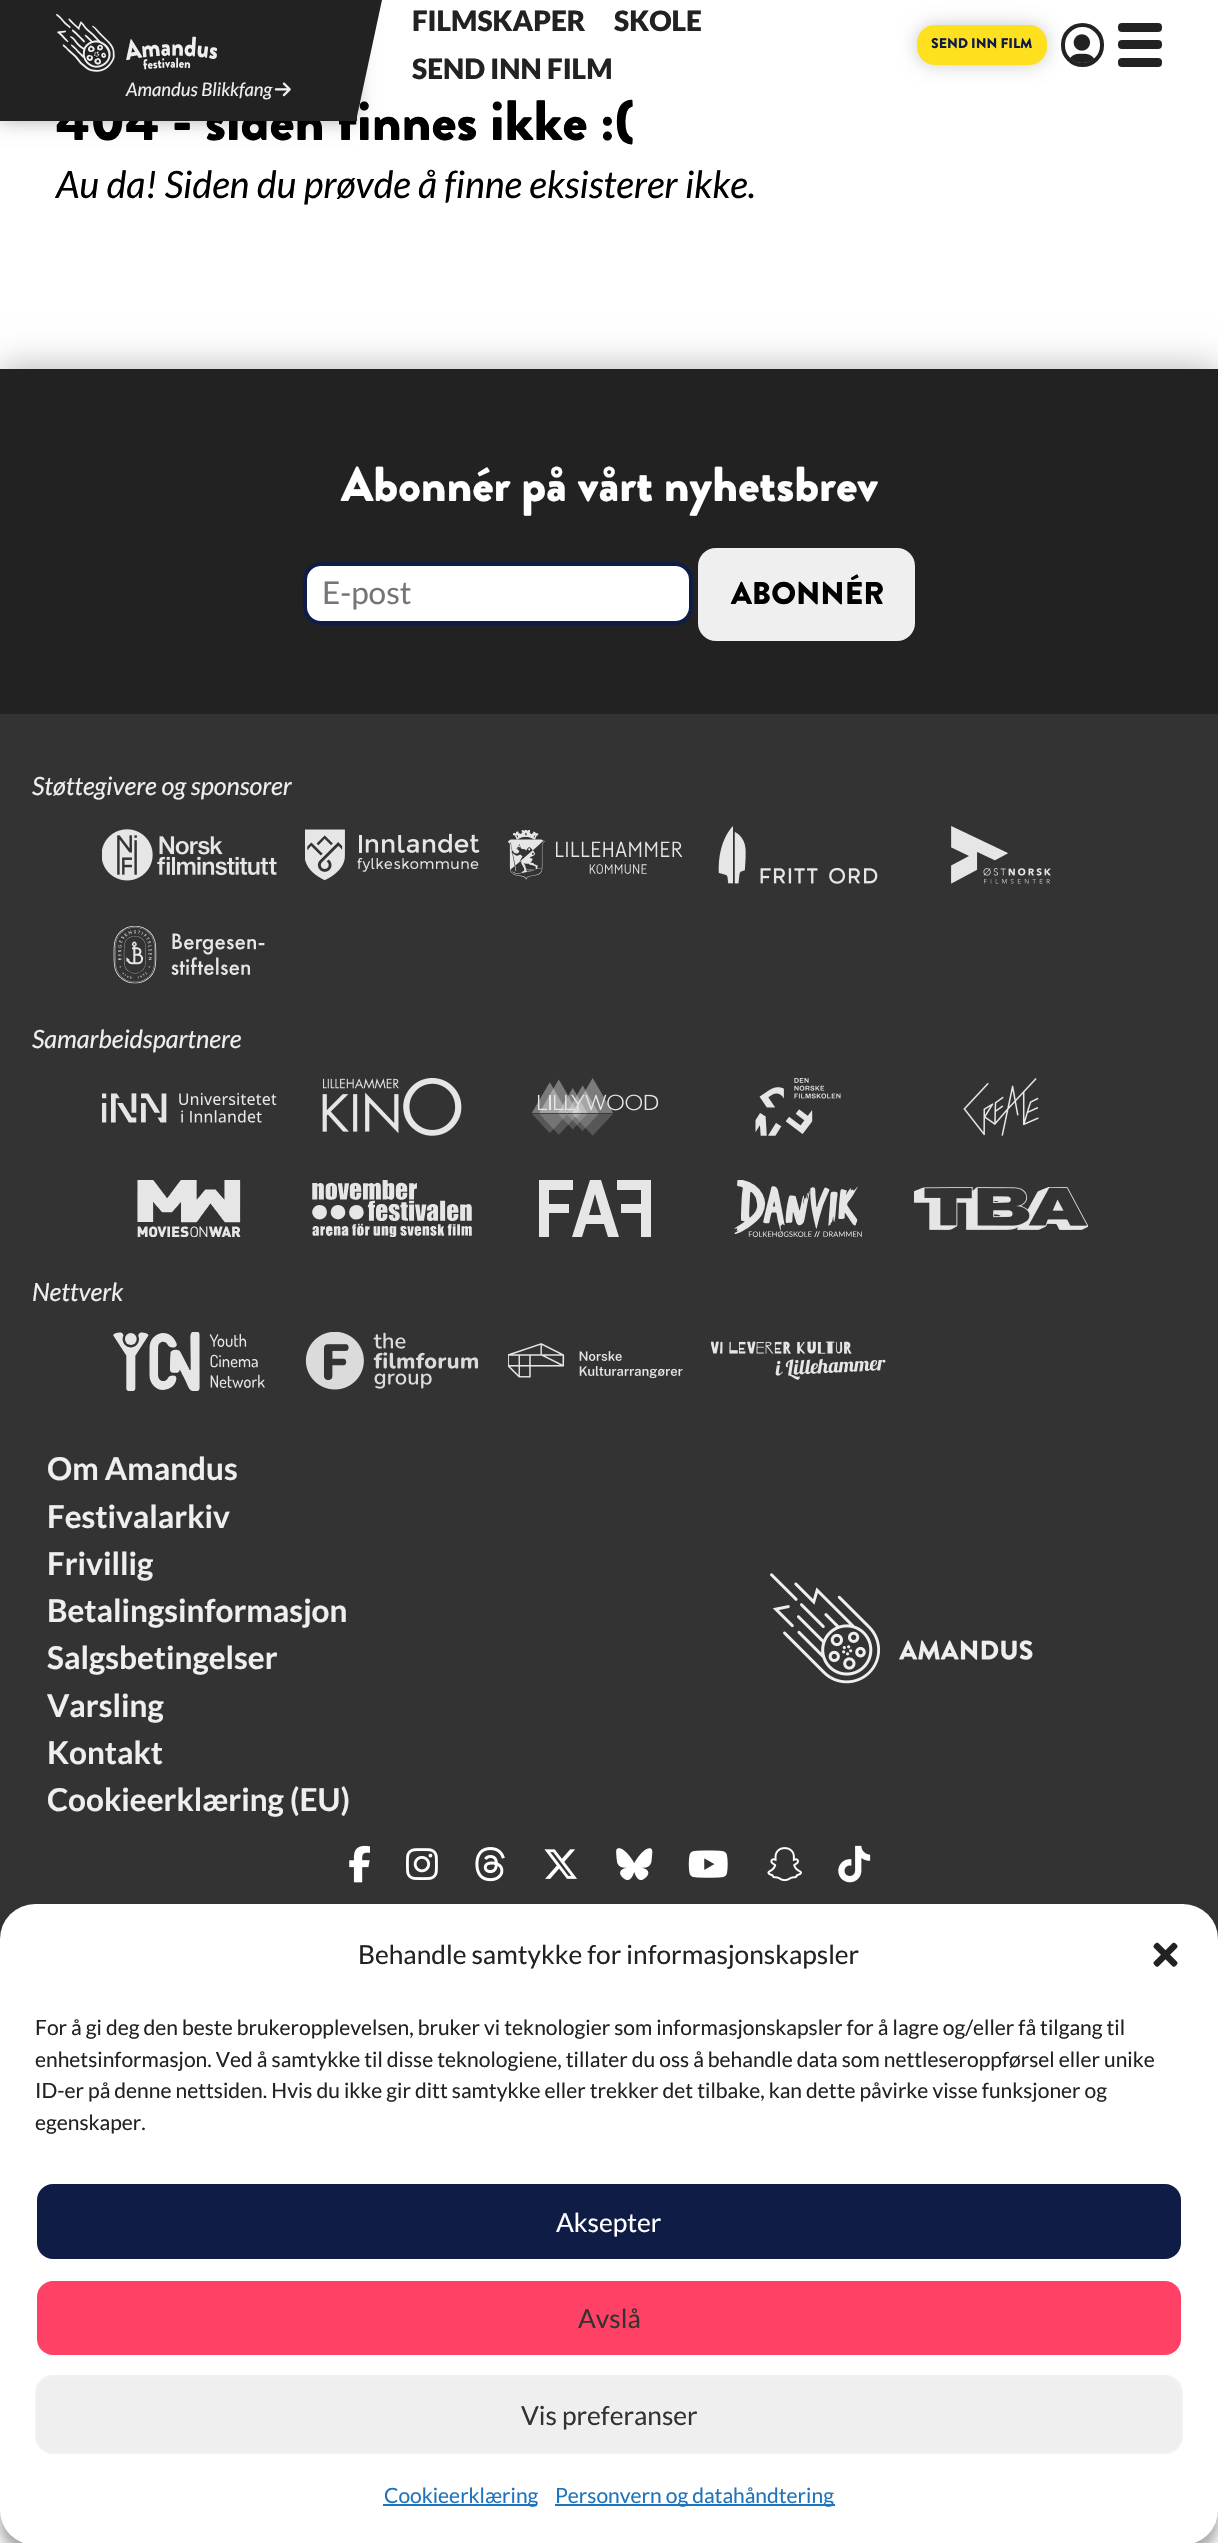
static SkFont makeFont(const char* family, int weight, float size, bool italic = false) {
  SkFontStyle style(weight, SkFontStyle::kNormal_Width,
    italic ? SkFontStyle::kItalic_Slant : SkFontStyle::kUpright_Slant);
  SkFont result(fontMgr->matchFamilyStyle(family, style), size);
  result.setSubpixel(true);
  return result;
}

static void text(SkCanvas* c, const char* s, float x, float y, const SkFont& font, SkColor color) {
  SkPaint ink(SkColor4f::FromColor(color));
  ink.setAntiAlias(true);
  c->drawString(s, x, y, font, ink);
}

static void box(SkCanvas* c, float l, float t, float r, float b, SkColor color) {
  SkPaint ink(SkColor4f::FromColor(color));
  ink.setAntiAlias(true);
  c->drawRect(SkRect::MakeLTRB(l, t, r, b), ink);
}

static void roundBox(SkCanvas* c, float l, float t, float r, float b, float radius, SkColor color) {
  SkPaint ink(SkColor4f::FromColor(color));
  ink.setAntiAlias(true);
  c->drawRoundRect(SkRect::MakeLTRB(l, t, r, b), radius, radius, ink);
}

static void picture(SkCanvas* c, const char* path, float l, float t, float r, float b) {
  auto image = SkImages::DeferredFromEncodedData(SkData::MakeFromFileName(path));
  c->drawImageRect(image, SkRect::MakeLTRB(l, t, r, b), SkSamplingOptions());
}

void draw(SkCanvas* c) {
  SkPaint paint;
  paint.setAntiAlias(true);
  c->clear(0xffffffff);
  SkFont face1 = makeFont("Lato", 900, 28);
  text(c, "FILMSKAPER", 412, 31, face1, 0xff222222);
  text(c, "SKOLE", 614, 31, face1, 0xff222222);
  text(c, "SEND INN FILM", 412, 79, face1, 0xff222222);
  paint.setColor(0x33000000);
  paint.setMaskFilter(SkMaskFilter::MakeBlur(kNormal_SkBlurStyle, 9));
  c->drawRoundRect(SkRect::MakeLTRB(917, 25, 1047, 65), 18, 18, paint);
  paint.setMaskFilter(nullptr);
  roundBox(c, 917, 25, 1047, 65, 18, 0xffffe01e);
  SkFont face2 = makeFont("Brandon Grotesque", 900, 14);
  text(c, "SEND INN FILM", 931, 48, face2, 0xff0f1c48);
  paint.setStyle(SkPaint::kStroke_Style);
  paint.setStrokeWidth(4);
  paint.setColor(0xff222222);
  c->drawRoundRect(SkRect::MakeLTRB(1063, 25, 1102, 65), 19.5f, 19.5f, paint);
  picture(c, "img_01.png", 1070, 34, 1094, 63);
  roundBox(c, 1118, 40, 1162, 49, 4, 0xff222222);
  roundBox(c, 1118, 23, 1162, 32, 4, 0xff222222);
  roundBox(c, 1118, 58, 1162, 67, 4, 0xff222222);
  paint.setStyle(SkPaint::kFill_Style);
  paint.setColor(0x4d000000);
  paint.setMaskFilter(SkMaskFilter::MakeBlur(kNormal_SkBlurStyle, 9));
  c->drawRect(SkRect::MakeLTRB(0, 0, 357, 121), paint);
  paint.setMaskFilter(nullptr);
  SkFont face3 = makeFont("Brandon Grotesque", 900, 56.75f);
  text(c, "404 - siden finnes ikke :(", 56, 140, face3, 0xff000000);
  box(c, 0, 0, 357, 121, 0xff222222);
  picture(c, "img_02.png", 56, 14, 217, 72);
  paint.setColor(0xff222222);
  c->drawPath(SkPathBuilder().moveTo(382, 0).lineTo(356, 0).lineTo(356, 121).close().detach(), paint);
  SkFont face4 = makeFont("Lato", 400, 18.5f, true);
  text(c, "Amandus Blikkfang", 126, 96, face4, 0xffefefef);
  picture(c, "img_03.png", 274, 82, 291, 97);
  SkFont face5 = makeFont("Lato", 400, 37.75f, true);
  text(c, "Au da! Siden du prøvde å finne eksisterer ikke.", 56, 198, face5, 0xff000000);
  paint.setColor(0x4d000000);
  paint.setMaskFilter(SkMaskFilter::MakeBlur(kNormal_SkBlurStyle, 17.5f));
  c->drawRect(SkRect::MakeLTRB(0, 369, 1218, 714), paint);
  paint.setMaskFilter(nullptr);
  box(c, 0, 369, 1218, 714, 0xff222222);
  SkFont face6 = makeFont("Brandon Grotesque", 900, 48.75f);
  text(c, "Abonnér på vårt nyhetsbrev", 341, 501, face6, 0xffffffff);
  paint.setColor(0xffffffff);
  c->drawRoundRect(SkRect::MakeLTRB(305, 564, 691, 623), 16, 16, paint);
  paint.setStyle(SkPaint::kStroke_Style);
  paint.setColor(0xff0f1c48);
  c->drawRoundRect(SkRect::MakeLTRB(305, 564, 691, 623), 16, 16, paint);
  SkFont face7 = makeFont("Lato", 400, 31.5f);
  text(c, "E-post", 322, 604, face7, 0xff757575);
  roundBox(c, 698, 548, 915, 641, 18, 0xffefefef);
  SkFont face8 = makeFont("Brandon Grotesque", 900, 31.5f);
  text(c, "ABONNÉR", 731, 604, face8, 0xff000000);
  box(c, 0, 714, 1218, 1939, 0xff333333);
  SkFont face9 = makeFont("Lato", 400, 25.25f, true);
  text(c, "Støttegivere og sponsorer", 32, 795, face9, 0xffefefef);
  picture(c, "img_04.png", 102, 829, 277, 881);
  picture(c, "img_05.png", 305, 829, 480, 881);
  picture(c, "img_06.png", 508, 830, 683, 880);
  picture(c, "img_07.png", 718, 826, 878, 884);
  picture(c, "img_08.png", 951, 826, 1051, 884);
  picture(c, "img_09.png", 113, 926, 265, 984);
  text(c, "Samarbeidspartnere", 32, 1048, face9, 0xffefefef);
  picture(c, "img_10.png", 102, 1093, 277, 1123);
  picture(c, "img_11.png", 322, 1078, 462, 1136);
  picture(c, "img_12.png", 532, 1078, 659, 1136);
  picture(c, "img_13.png", 755, 1078, 841, 1136);
  picture(c, "img_14.png", 963, 1078, 1039, 1136);
  picture(c, "img_15.png", 137, 1180, 241, 1237);
  picture(c, "img_16.png", 312, 1180, 472, 1237);
  paint.setStyle(SkPaint::kFill_Style);
  paint.setColor(0xffe6e6e6);
  c->drawPath(SkPathBuilder().moveTo(573, 1180).lineTo(573, 1190).lineTo(549, 1190).lineTo(549, 1204).lineTo(569, 1204).lineTo(569, 1213).lineTo(549, 1213).lineTo(549, 1237).lineTo(539, 1237).lineTo(539, 1180).close().detach(), paint);
  c->drawPath(SkPathBuilder().moveTo(601, 1180).lineTo(619, 1237).lineTo(608, 1237).lineTo(604, 1224).lineTo(586, 1224).lineTo(582, 1237).lineTo(572, 1237).lineTo(590, 1180).close().moveTo(601, 1215).lineTo(595, 1194).lineTo(589, 1215).close().detach(), paint);
  c->drawPath(SkPathBuilder().moveTo(617, 1180).lineTo(617, 1190).lineTo(641, 1190).lineTo(641, 1204).lineTo(621, 1204).lineTo(621, 1213).lineTo(641, 1213).lineTo(641, 1237).lineTo(651, 1237).lineTo(651, 1180).close().detach(), paint);
  picture(c, "img_17.png", 734, 1180, 862, 1237);
  picture(c, "img_18.png", 914, 1187, 1088, 1230);
  text(c, "Nettverk", 32, 1301, face9, 0xffefefef);
  picture(c, "img_19.png", 113, 1332, 265, 1391);
  picture(c, "img_20.png", 305, 1332, 479, 1390);
  picture(c, "img_21.png", 508, 1343, 683, 1379);
  picture(c, "img_22.png", 711, 1341, 886, 1380);
  SkFont face10 = makeFont("Lato", 700, 31.5f);
  text(c, "Om Amandus", 47, 1480, face10, 0xffefefef);
  text(c, "Festivalarkiv", 47, 1528, face10, 0xffefefef);
  text(c, "Frivillig", 47, 1575, face10, 0xffefefef);
  text(c, "Betalingsinformasjon", 47, 1622, face10, 0xffefefef);
  text(c, "Salgsbetingelser", 47, 1669, face10, 0xffefefef);
  text(c, "Varsling", 47, 1717, face10, 0xffefefef);
  text(c, "Kontakt", 47, 1764, face10, 0xffefefef);
  text(c, "Cookieerklæring (EU)", 47, 1811, face10, 0xffefefef);
  picture(c, "img_23.png", 770, 1573, 1033, 1684);
  picture(c, "img_24.png", 349, 1845, 370, 1883);
  picture(c, "img_25.png", 406, 1848, 438, 1880);
  picture(c, "img_26.png", 475, 1847, 505, 1882);
  picture(c, "img_27.png", 544, 1849, 577, 1879);
  picture(c, "img_28.png", 616, 1848, 653, 1880);
  picture(c, "img_29.png", 688, 1850, 728, 1878);
  picture(c, "img_30.png", 767, 1847, 802, 1882);
  picture(c, "img_31.png", 838, 1845, 871, 1883);
  paint.setColor(0x3b000000);
  paint.setMaskFilter(SkMaskFilter::MakeBlur(kNormal_SkBlurStyle, 5));
  c->drawRoundRect(SkRect::MakeLTRB(0, 1915, 1218, 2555), 35, 35, paint);
  paint.setMaskFilter(nullptr);
  paint.setColor(0x30000000);
  paint.setMaskFilter(SkMaskFilter::MakeBlur(kNormal_SkBlurStyle, 17.5f));
  c->drawRoundRect(SkRect::MakeLTRB(0, 1922, 1218, 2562), 35, 35, paint);
  paint.setMaskFilter(nullptr);
  roundBox(c, 0, 1904, 1218, 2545, 35, 0xffffffff);
  SkFont face11 = makeFont("Lato", 400, 26.25f);
  text(c, "Behandle samtykke for informasjonskapsler", 358, 1964, face11, 0xff222222);
  picture(c, "img_32.png", 1153, 1942, 1178, 1967);
  SkFont face12 = makeFont("Lato", 400, 21);
  text(c, "For å gi deg den beste brukeropplevelsen, bruker vi teknologier som informasjonskapsler for å lagre og/eller få tilgang til", 35, 2035, face12, 0xff222222);
  text(c, "enhetsinformasjon. Ved å samtykke til disse teknologiene, tillater du oss å behandle data som nettleseroppførsel eller unike", 35, 2067, face12, 0xff222222);
  text(c, "ID-er på denne nettsiden. Hvis du ikke gir ditt samtykke eller trekker det tilbake, kan dette påvirke visse funksjoner og", 35, 2098, face12, 0xff222222);
  text(c, "egenskaper.", 35, 2130, face12, 0xff222222);
  paint.setColor(0xff0f1c46);
  c->drawRoundRect(SkRect::MakeLTRB(36, 2183, 1182, 2260), 17, 17, paint);
  paint.setStyle(SkPaint::kStroke_Style);
  paint.setStrokeWidth(2);
  paint.setColor(0xffffffff);
  c->drawRoundRect(SkRect::MakeLTRB(36, 2183, 1182, 2260), 17, 17, paint);
  text(c, "Aksepter", 556, 2232, face11, 0xffffffff);
  paint.setStyle(SkPaint::kFill_Style);
  paint.setColor(0xffff4165);
  c->drawRoundRect(SkRect::MakeLTRB(36, 2280, 1182, 2356), 17, 17, paint);
  paint.setStyle(SkPaint::kStroke_Style);
  paint.setColor(0xffffffff);
  c->drawRoundRect(SkRect::MakeLTRB(36, 2280, 1182, 2356), 17, 17, paint);
  text(c, "Avslå", 578, 2328, face11, 0xff333333);
  paint.setStyle(SkPaint::kFill_Style);
  paint.setColor(0xffefefef);
  c->drawRoundRect(SkRect::MakeLTRB(36, 2376, 1182, 2453), 17, 17, paint);
  paint.setStyle(SkPaint::kStroke_Style);
  paint.setColor(0xfff2f2f2);
  c->drawRoundRect(SkRect::MakeLTRB(36, 2376, 1182, 2453), 17, 17, paint);
  text(c, "Vis preferanser", 521, 2425, face11, 0xff333333);
  box(c, 383, 2504, 537, 2506, 0xff1e73be);
  text(c, "Cookieerklæring", 384, 2503, face12, 0xff1e73be);
  box(c, 555, 2504, 835, 2506, 0xff1e73be);
  text(c, "Personvern og datahåndtering", 555, 2503, face12, 0xff1e73be);
}
